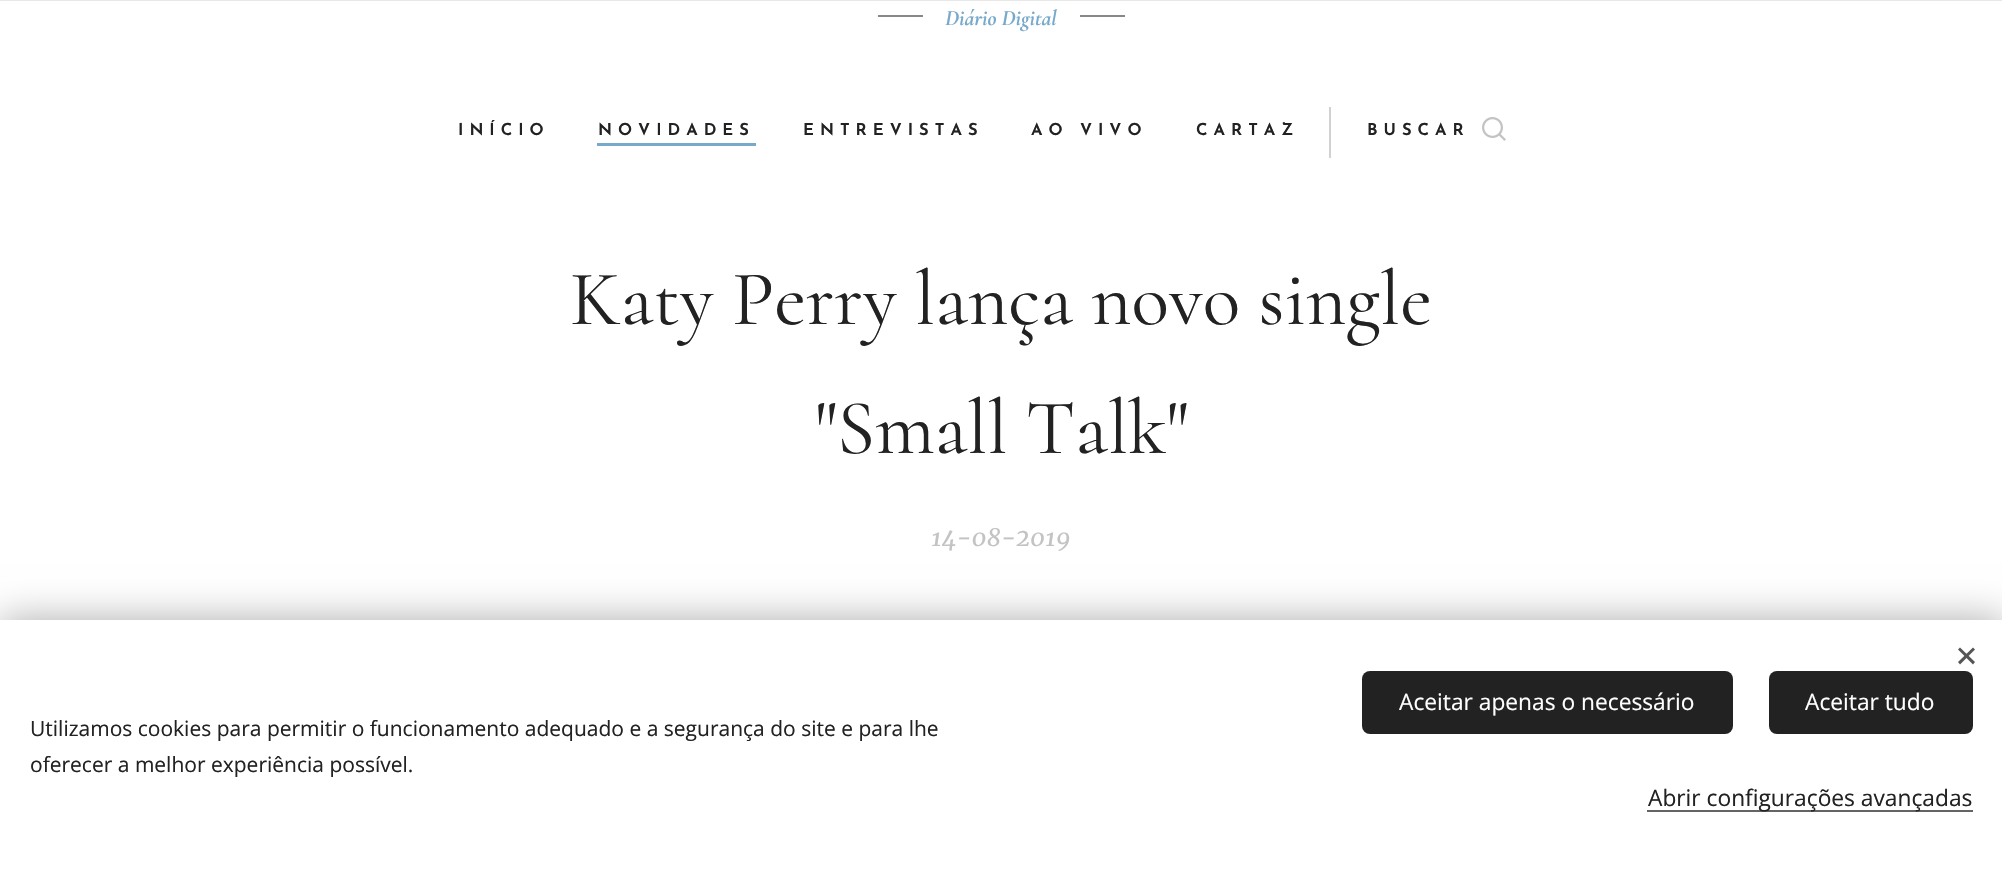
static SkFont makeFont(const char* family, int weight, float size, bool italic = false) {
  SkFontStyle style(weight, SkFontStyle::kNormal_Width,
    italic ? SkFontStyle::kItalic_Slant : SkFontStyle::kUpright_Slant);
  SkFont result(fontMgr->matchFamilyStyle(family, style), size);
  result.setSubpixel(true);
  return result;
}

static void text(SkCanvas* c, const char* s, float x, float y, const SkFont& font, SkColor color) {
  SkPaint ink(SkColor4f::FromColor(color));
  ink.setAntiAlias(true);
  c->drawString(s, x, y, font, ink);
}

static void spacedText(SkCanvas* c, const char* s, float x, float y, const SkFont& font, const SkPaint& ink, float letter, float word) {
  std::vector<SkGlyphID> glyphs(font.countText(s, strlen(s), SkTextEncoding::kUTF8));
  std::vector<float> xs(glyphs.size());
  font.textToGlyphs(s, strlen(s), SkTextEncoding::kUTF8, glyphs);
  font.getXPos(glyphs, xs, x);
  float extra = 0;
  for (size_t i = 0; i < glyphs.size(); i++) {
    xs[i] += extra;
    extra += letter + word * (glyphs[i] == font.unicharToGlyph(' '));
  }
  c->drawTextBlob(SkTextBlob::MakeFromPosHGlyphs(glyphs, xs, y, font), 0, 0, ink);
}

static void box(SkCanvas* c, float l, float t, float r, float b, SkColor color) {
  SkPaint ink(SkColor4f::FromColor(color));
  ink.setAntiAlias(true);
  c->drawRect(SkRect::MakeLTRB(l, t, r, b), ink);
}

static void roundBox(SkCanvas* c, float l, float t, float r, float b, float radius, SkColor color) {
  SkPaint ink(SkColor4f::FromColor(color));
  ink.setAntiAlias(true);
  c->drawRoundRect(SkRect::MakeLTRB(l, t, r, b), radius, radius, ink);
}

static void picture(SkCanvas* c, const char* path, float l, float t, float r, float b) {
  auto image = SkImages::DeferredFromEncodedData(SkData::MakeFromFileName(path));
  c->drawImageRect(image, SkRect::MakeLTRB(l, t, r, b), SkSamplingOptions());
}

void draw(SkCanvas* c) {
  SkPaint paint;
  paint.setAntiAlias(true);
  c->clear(0xffffffff);
  box(c, 878, 15, 923, 17, 0xff888888);
  SkFont face1 = makeFont("Cormorant", 700, 22, true);
  text(c, "Diário Digital", 945, 25, face1, 0xff77a9ca);
  box(c, 1080, 15, 1125, 17, 0xff888888);
  SkFont face2 = makeFont("Josefin Sans", 600, 16.5f);
  paint.setColor(0xff222222);
  spacedText(c, "INÍCIO", 458, 135, face2, paint, 6, 0);
  spacedText(c, "NOVIDADES", 598, 135, face2, paint, 6, 0);
  box(c, 597, 143, 756, 146, 0xff77a9ca);
  spacedText(c, "ENTREVISTAS", 803, 135, face2, paint, 6, 0);
  spacedText(c, "AO VIVO", 1031, 135, face2, paint, 6, 0);
  spacedText(c, "CARTAZ", 1196, 135, face2, paint, 6, 0);
  box(c, 0, 0, 2002, 1, 0xffe8e8e8);
  box(c, 1329, 107, 1331, 158, 0xffd1d1d1);
  spacedText(c, "BUSCAR", 1367, 135, face2, paint, 6, 0);
  picture(c, "img_01.png", 1482, 117, 1506, 141);
  SkFont face3 = makeFont("Cormorant", 400, 78);
  text(c, "Katy Perry lança novo single", 570, 324, face3, 0xff222222);
  text(c, "''Small Talk''", 815, 453, face3, 0xff222222);
  SkFont face4 = makeFont("Merriweather", 400, 24, true);
  text(c, "14-08-2019", 931, 546, face4, 0xffc3c3c3);
  paint.setColor(0x54000000);
  paint.setMaskFilter(SkMaskFilter::MakeBlur(kNormal_SkBlurStyle, 19));
  c->drawRect(SkRect::MakeLTRB(0, 620, 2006, 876), paint);
  paint.setMaskFilter(nullptr);
  box(c, 0, 620, 2002, 872, 0xffffffff);
  paint.setColor(0xff555555);
  c->drawPath(SkPathBuilder().moveTo(1958, 662).lineTo(1973, 647.5f).lineTo(1975, 649.5f).lineTo(1960, 664.5f).close().detach(), paint);
  c->drawPath(SkPathBuilder().moveTo(1960, 647.5f).lineTo(1975, 662).lineTo(1973, 664.5f).lineTo(1958, 649.5f).close().detach(), paint);
  SkFont face5 = makeFont("Open Sans", 400, 21);
  text(c, "Utilizamos cookies para permitir o funcionamento adequado e a segurança do site e para lhe", 30, 736, face5, 0xff222222);
  text(c, "oferecer a melhor experiência possível.", 30, 772, face5, 0xff222222);
  roundBox(c, 1362, 671, 1733, 734, 8, 0xff222222);
  SkFont face6 = makeFont("Open Sans", 400, 22.75f);
  text(c, "Aceitar apenas o necessário", 1399, 710, face6, 0xffffffff);
  roundBox(c, 1769, 671, 1973, 734, 8, 0xff222222);
  text(c, "Aceitar tudo", 1805, 710, face6, 0xffffffff);
  box(c, 1647, 810, 1973, 812, 0xff646464);
  text(c, "Abrir configurações avançadas", 1648, 806, face6, 0xff222222);
}
